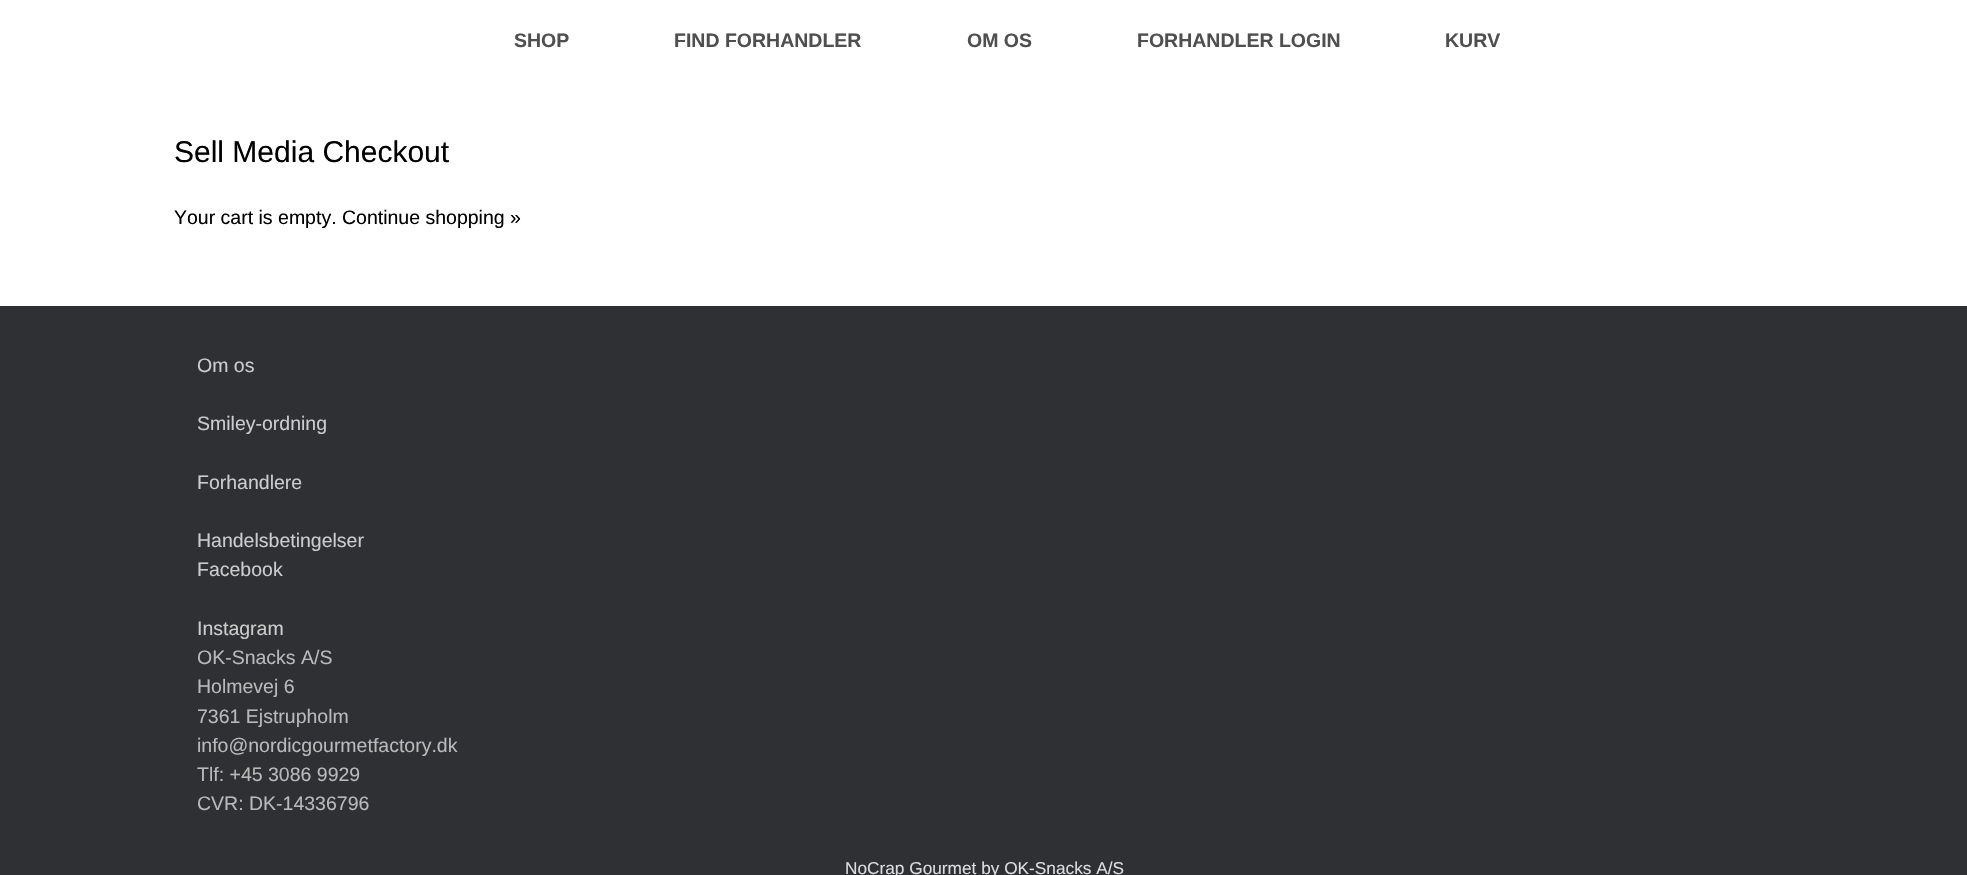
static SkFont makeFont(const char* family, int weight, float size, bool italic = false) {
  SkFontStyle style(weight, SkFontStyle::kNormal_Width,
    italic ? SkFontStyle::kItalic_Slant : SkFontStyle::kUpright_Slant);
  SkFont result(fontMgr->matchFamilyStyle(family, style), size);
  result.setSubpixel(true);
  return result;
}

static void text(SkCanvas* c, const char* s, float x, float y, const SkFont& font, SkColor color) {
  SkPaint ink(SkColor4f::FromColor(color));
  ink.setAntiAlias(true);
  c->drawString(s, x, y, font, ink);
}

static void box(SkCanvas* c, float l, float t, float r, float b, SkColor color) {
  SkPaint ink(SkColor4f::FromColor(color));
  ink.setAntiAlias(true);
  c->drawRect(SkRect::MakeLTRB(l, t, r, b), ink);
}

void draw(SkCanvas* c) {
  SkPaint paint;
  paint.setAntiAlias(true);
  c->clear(0xff2f3033);
  box(c, 0, 0, 1967, 306, 0xffffffff);
  SkFont face1 = makeFont("Liberation Sans", 700, 19.5f);
  text(c, "SHOP", 514, 47, face1, 0xff4f4f4f);
  text(c, "FIND FORHANDLER", 674, 47, face1, 0xff4f4f4f);
  text(c, "OM OS", 967, 47, face1, 0xff4f4f4f);
  text(c, "FORHANDLER LOGIN", 1137, 47, face1, 0xff4f4f4f);
  text(c, "KURV", 1445, 47, face1, 0xff4f4f4f);
  SkFont face2 = makeFont("Liberation Sans", 400, 30);
  text(c, "Sell Media Checkout", 174, 162, face2, 0xff000000);
  SkFont face3 = makeFont("Liberation Sans", 400, 19.5f);
  text(c, "Your cart is empty.", 174, 224, face3, 0xff000000);
  text(c, "Continue shopping »", 342, 224, face3, 0xff000000);
  text(c, "Om os", 197, 372, face3, 0xffcccccc);
  text(c, "Smiley-ordning", 197, 430, face3, 0xffcccccc);
  text(c, "Forhandlere", 197, 489, face3, 0xffcccccc);
  text(c, "Handelsbetingelser", 197, 547, face3, 0xffcccccc);
  text(c, "Facebook", 197, 576, face3, 0xffcccccc);
  text(c, "Instagram", 197, 635, face3, 0xffcccccc);
  text(c, "OK-Snacks A/S", 197, 664, face3, 0xffb9b9b9);
  text(c, "Holmevej 6", 197, 693, face3, 0xffb9b9b9);
  text(c, "7361 Ejstrupholm", 197, 723, face3, 0xffb9b9b9);
  text(c, "info@nordicgourmetfactory.dk", 197, 752, face3, 0xffb9b9b9);
  text(c, "Tlf: +45 3086 9929", 197, 781, face3, 0xffb9b9b9);
  text(c, "CVR: DK-14336796", 197, 810, face3, 0xffb9b9b9);
  SkFont face4 = makeFont("Liberation Sans", 400, 17.25f);
  text(c, "NoCrap Gourmet by OK-Snacks A/S", 845, 874, face4, 0xffdddddd);
}
